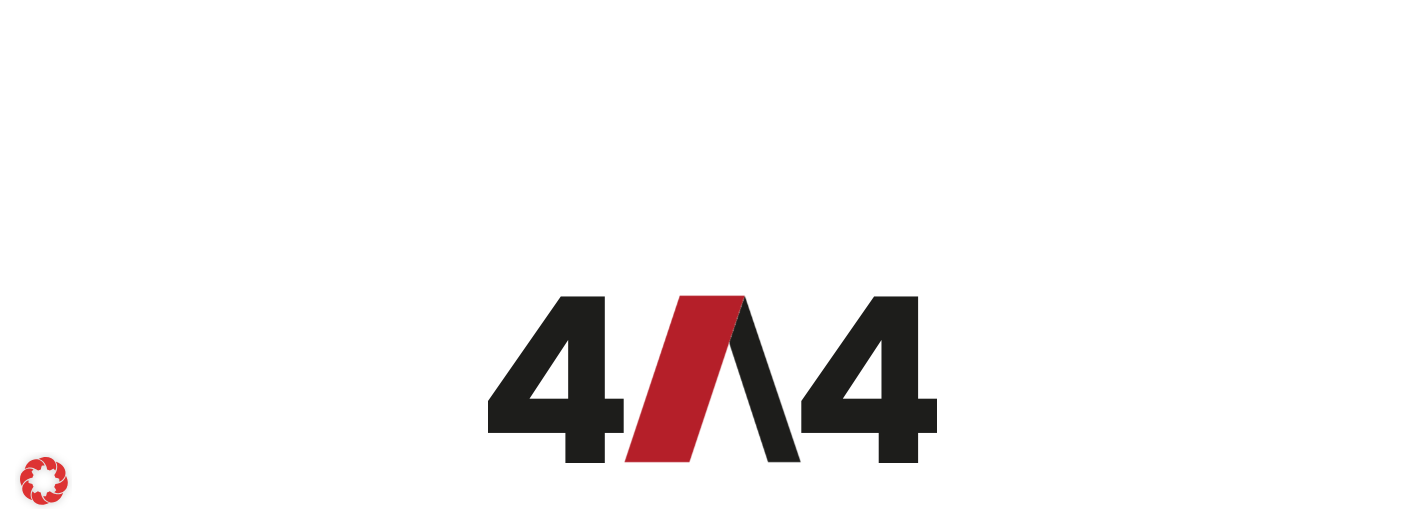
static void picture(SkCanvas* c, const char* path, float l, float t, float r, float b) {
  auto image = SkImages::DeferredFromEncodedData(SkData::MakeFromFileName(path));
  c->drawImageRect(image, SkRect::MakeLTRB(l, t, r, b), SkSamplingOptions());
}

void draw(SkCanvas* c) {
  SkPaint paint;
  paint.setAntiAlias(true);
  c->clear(0xffffffff);
  picture(c, "img_01.png", 488, 295, 937, 463);
  picture(c, "img_02.png", 15, 452, 72, 509);
}
